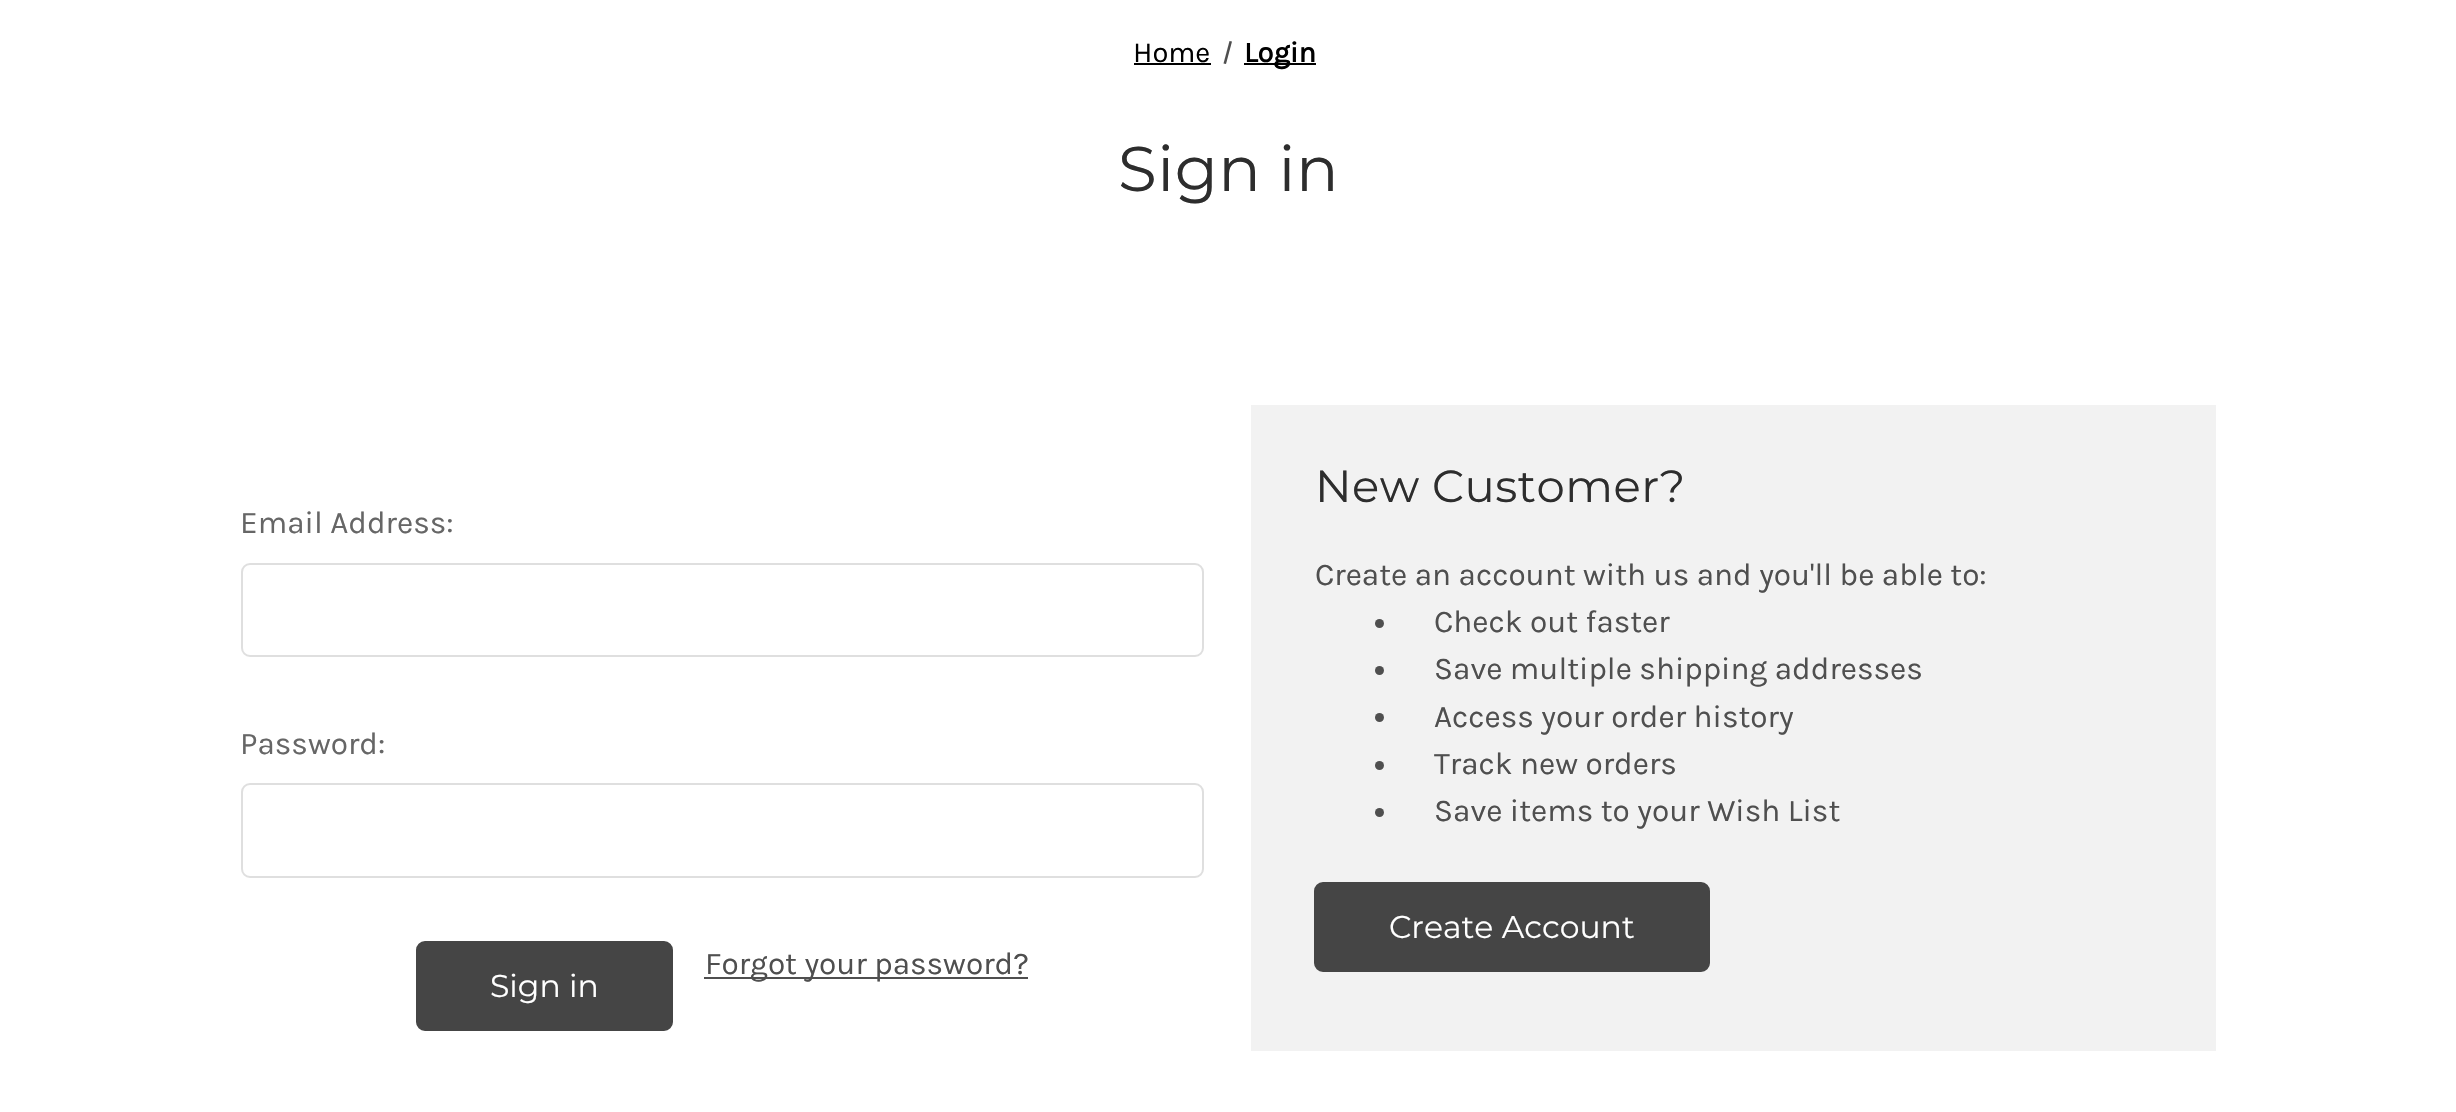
static SkFont makeFont(const char* family, int weight, float size, bool italic = false) {
  SkFontStyle style(weight, SkFontStyle::kNormal_Width,
    italic ? SkFontStyle::kItalic_Slant : SkFontStyle::kUpright_Slant);
  SkFont result(fontMgr->matchFamilyStyle(family, style), size);
  result.setSubpixel(true);
  return result;
}

static void text(SkCanvas* c, const char* s, float x, float y, const SkFont& font, SkColor color) {
  SkPaint ink(SkColor4f::FromColor(color));
  ink.setAntiAlias(true);
  c->drawString(s, x, y, font, ink);
}

static void spacedText(SkCanvas* c, const char* s, float x, float y, const SkFont& font, const SkPaint& ink, float letter, float word) {
  std::vector<SkGlyphID> glyphs(font.countText(s, strlen(s), SkTextEncoding::kUTF8));
  std::vector<float> xs(glyphs.size());
  font.textToGlyphs(s, strlen(s), SkTextEncoding::kUTF8, glyphs);
  font.getXPos(glyphs, xs, x);
  float extra = 0;
  for (size_t i = 0; i < glyphs.size(); i++) {
    xs[i] += extra;
    extra += letter + word * (glyphs[i] == font.unicharToGlyph(' '));
  }
  c->drawTextBlob(SkTextBlob::MakeFromPosHGlyphs(glyphs, xs, y, font), 0, 0, ink);
}

static void box(SkCanvas* c, float l, float t, float r, float b, SkColor color) {
  SkPaint ink(SkColor4f::FromColor(color));
  ink.setAntiAlias(true);
  c->drawRect(SkRect::MakeLTRB(l, t, r, b), ink);
}

void draw(SkCanvas* c) {
  SkPaint paint;
  paint.setAntiAlias(true);
  c->clear(0xffffffff);
  SkFont face1 = makeFont("Karla", 400, 29);
  text(c, "Home", 1133, 62, face1, 0xff000000);
  box(c, 1134, 63, 1211, 65, 0xff000000);
  paint.setColor(0xff4f4f4f);
  c->drawPath(SkPathBuilder().moveTo(1229.5f, 41).lineTo(1232, 41.5f).lineTo(1226, 64).lineTo(1223.5f, 63.5f).close().detach(), paint);
  box(c, 1244, 63, 1316, 65, 0xff000000);
  SkFont face2 = makeFont("Karla", 700, 29);
  text(c, "Login", 1244, 62, face2, 0xff000000);
  SkFont face3 = makeFont("Montserrat", 100, 63);
  paint.setColor(0xff2d2d2d);
  spacedText(c, "Sign in", 1118, 191, face3, paint, 0.5f, 0);
  SkFont face4 = makeFont("Karla", 400, 31.5f);
  text(c, "Email Address:", 240, 533, face4, 0xff666666);
  paint.setStyle(SkPaint::kStroke_Style);
  paint.setStrokeWidth(2);
  paint.setColor(0xffdfdfdf);
  c->drawRoundRect(SkRect::MakeLTRB(242, 564, 1203, 656), 8, 8, paint);
  text(c, "Password:", 240, 754, face4, 0xff666666);
  c->drawRoundRect(SkRect::MakeLTRB(242, 784, 1203, 877), 8, 8, paint);
  box(c, 704, 977, 1028, 979, 0xff4f4f4f);
  text(c, "Forgot your password?", 705, 974, face4, 0xff4f4f4f);
  paint.setStyle(SkPaint::kFill_Style);
  paint.setColor(0xff454545);
  c->drawRoundRect(SkRect::MakeLTRB(417, 942, 672, 1030), 8, 8, paint);
  paint.setStyle(SkPaint::kStroke_Style);
  c->drawRoundRect(SkRect::MakeLTRB(417, 942, 672, 1030), 8, 8, paint);
  SkFont face5 = makeFont("Montserrat", 100, 31.5f);
  text(c, "Sign in", 490, 997, face5, 0xffffffff);
  box(c, 1251, 405, 2216, 1051, 0xfff2f2f2);
  SkFont face6 = makeFont("Montserrat", 100, 45);
  paint.setStyle(SkPaint::kFill_Style);
  paint.setColor(0xff2d2d2d);
  spacedText(c, "New Customer?", 1315, 502, face6, paint, 0.5f, 0);
  text(c, "Create an account with us and you'll be able to:", 1315, 585, face4, 0xff4f4f4f);
  paint.setColor(0xff4f4f4f);
  c->drawCircle(1379.5f, 623.5f, 4.5f, paint);
  text(c, "Check out faster", 1434, 632, face4, 0xff4f4f4f);
  c->drawCircle(1379.5f, 670.5f, 4.5f, paint);
  text(c, "Save multiple shipping addresses", 1434, 679, face4, 0xff4f4f4f);
  c->drawCircle(1379.5f, 717.5f, 4.5f, paint);
  text(c, "Access your order history", 1434, 727, face4, 0xff4f4f4f);
  c->drawCircle(1379.5f, 765.5f, 4.5f, paint);
  text(c, "Track new orders", 1434, 774, face4, 0xff4f4f4f);
  c->drawCircle(1379.5f, 812.5f, 4.5f, paint);
  text(c, "Save items to your Wish List", 1434, 821, face4, 0xff4f4f4f);
  paint.setColor(0xff454545);
  c->drawRoundRect(SkRect::MakeLTRB(1315, 883, 1709, 971), 8, 8, paint);
  paint.setStyle(SkPaint::kStroke_Style);
  c->drawRoundRect(SkRect::MakeLTRB(1315, 883, 1709, 971), 8, 8, paint);
  text(c, "Create Account", 1389, 938, face5, 0xffffffff);
}
